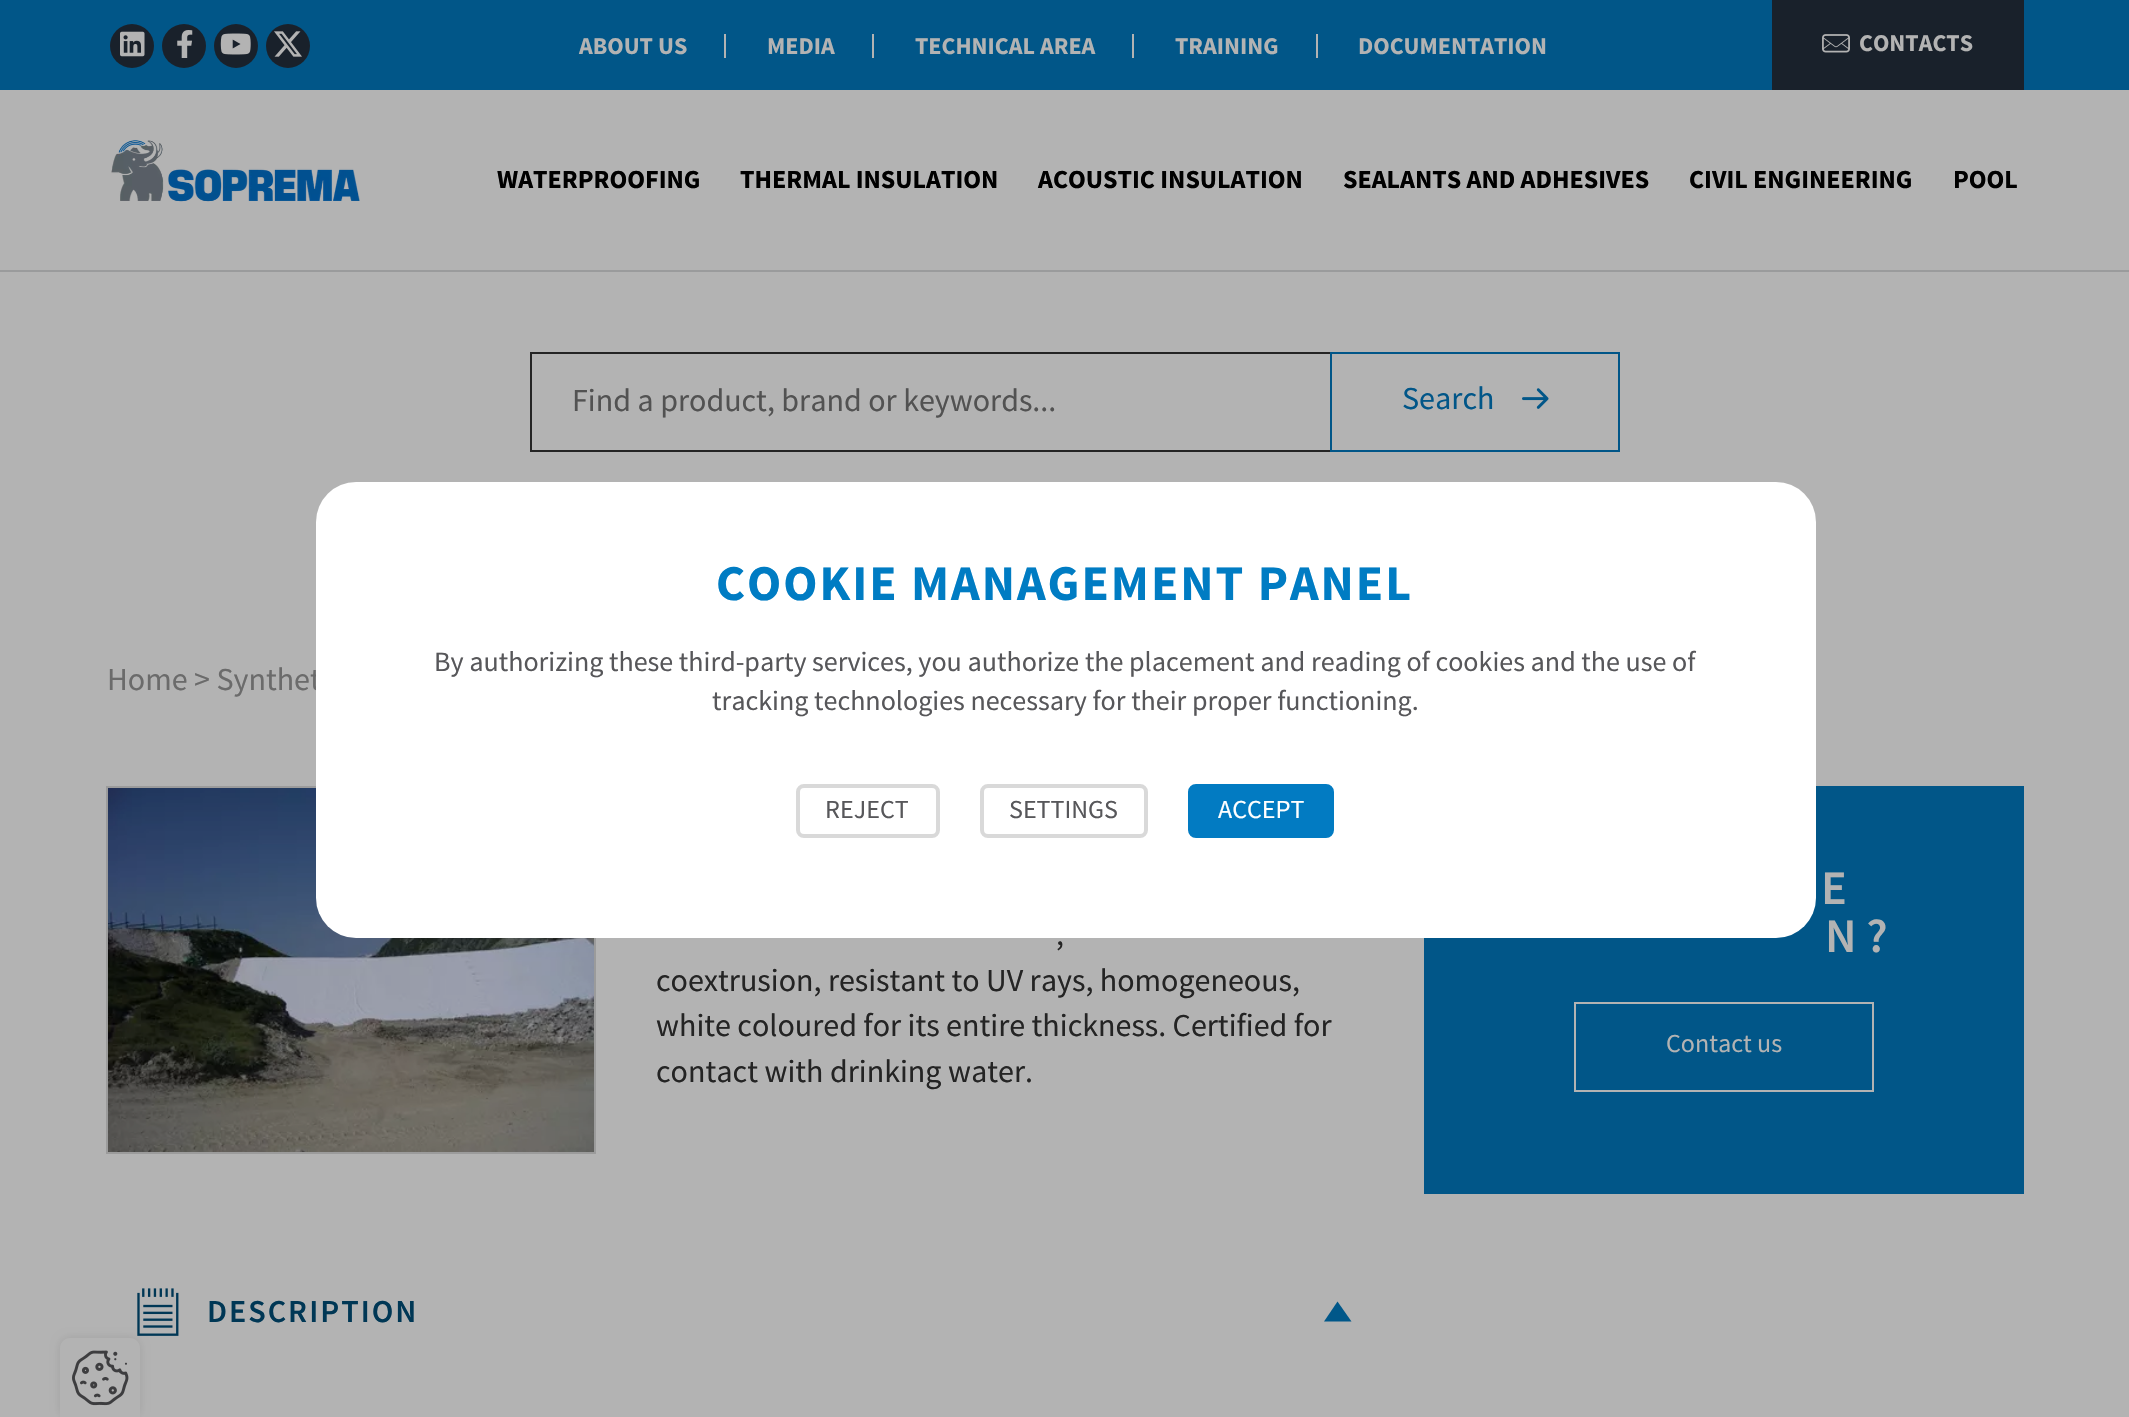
static SkFont makeFont(const char* family, int weight, float size, bool italic = false) {
  SkFontStyle style(weight, SkFontStyle::kNormal_Width,
    italic ? SkFontStyle::kItalic_Slant : SkFontStyle::kUpright_Slant);
  SkFont result(fontMgr->matchFamilyStyle(family, style), size);
  result.setSubpixel(true);
  return result;
}

static void text(SkCanvas* c, const char* s, float x, float y, const SkFont& font, SkColor color) {
  SkPaint ink(SkColor4f::FromColor(color));
  ink.setAntiAlias(true);
  c->drawString(s, x, y, font, ink);
}

static void spacedText(SkCanvas* c, const char* s, float x, float y, const SkFont& font, const SkPaint& ink, float letter, float word) {
  std::vector<SkGlyphID> glyphs(font.countText(s, strlen(s), SkTextEncoding::kUTF8));
  std::vector<float> xs(glyphs.size());
  font.textToGlyphs(s, strlen(s), SkTextEncoding::kUTF8, glyphs);
  font.getXPos(glyphs, xs, x);
  float extra = 0;
  for (size_t i = 0; i < glyphs.size(); i++) {
    xs[i] += extra;
    extra += letter + word * (glyphs[i] == font.unicharToGlyph(' '));
  }
  c->drawTextBlob(SkTextBlob::MakeFromPosHGlyphs(glyphs, xs, y, font), 0, 0, ink);
}

static void box(SkCanvas* c, float l, float t, float r, float b, SkColor color) {
  SkPaint ink(SkColor4f::FromColor(color));
  ink.setAntiAlias(true);
  c->drawRect(SkRect::MakeLTRB(l, t, r, b), ink);
}

static void roundBox(SkCanvas* c, float l, float t, float r, float b, float radius, SkColor color) {
  SkPaint ink(SkColor4f::FromColor(color));
  ink.setAntiAlias(true);
  c->drawRoundRect(SkRect::MakeLTRB(l, t, r, b), radius, radius, ink);
}

static void picture(SkCanvas* c, const char* path, float l, float t, float r, float b) {
  auto image = SkImages::DeferredFromEncodedData(SkData::MakeFromFileName(path));
  c->drawImageRect(image, SkRect::MakeLTRB(l, t, r, b), SkSamplingOptions());
}

void draw(SkCanvas* c) {
  SkPaint paint;
  paint.setAntiAlias(true);
  c->clear(0xffb3b3b3);
  box(c, 0, 270, 2129, 272, 0xff9a9b9c);
  box(c, 0, 0, 2129, 90, 0xff015688);
  paint.setColor(0xff19212b);
  c->drawCircle(132, 46, 22, paint);
  picture(c, "img_01.png", 120, 31, 145, 57);
  c->drawCircle(184, 46, 22, paint);
  picture(c, "img_02.png", 177, 30, 193, 58);
  c->drawCircle(236, 46, 22, paint);
  picture(c, "img_03.png", 220, 33, 251, 55);
  c->drawCircle(288, 46, 22, paint);
  picture(c, "img_04.png", 274, 31, 302, 57);
  SkFont face1 = makeFont("Source Sans Pro", 700, 24);
  text(c, "ABOUT US", 579, 54, face1, 0xffb3b3b3);
  box(c, 724, 34, 726, 58, 0xffb3b3b3);
  text(c, "MEDIA", 767, 54, face1, 0xffb3b3b3);
  box(c, 872, 34, 874, 58, 0xffb3b3b3);
  text(c, "TECHNICAL AREA", 915, 54, face1, 0xffb3b3b3);
  box(c, 1132, 34, 1134, 58, 0xffb3b3b3);
  text(c, "TRAINING", 1175, 54, face1, 0xffb3b3b3);
  box(c, 1316, 34, 1318, 58, 0xffb3b3b3);
  text(c, "DOCUMENTATION", 1358, 54, face1, 0xffb3b3b3);
  box(c, 1772, 0, 2024, 90, 0xff19212b);
  picture(c, "img_05.png", 1822, 34, 1850, 53);
  text(c, "CONTACTS", 1859, 51, face1, 0xffb3b3b3);
  picture(c, "img_06.png", 111, 140, 360, 202);
  SkFont face2 = makeFont("Source Sans Pro", 700, 26);
  text(c, "WATERPROOFING", 497, 188, face2, 0xff000000);
  text(c, "THERMAL INSULATION", 740, 188, face2, 0xff000000);
  text(c, "ACOUSTIC INSULATION", 1038, 188, face2, 0xff000000);
  text(c, "SEALANTS AND ADHESIVES", 1343, 188, face2, 0xff000000);
  text(c, "CIVIL ENGINEERING", 1689, 188, face2, 0xff000000);
  text(c, "POOL", 1953, 188, face2, 0xff000000);
  box(c, 530, 352, 1330, 354, 0xff242424);
  box(c, 530, 450, 1330, 452, 0xff242424);
  box(c, 530, 352, 532, 452, 0xff242424);
  SkFont face3 = makeFont("Source Sans Pro", 400, 32);
  text(c, "Find a product, brand or keywords...", 572, 411, face3, 0xff525252);
  paint.setStyle(SkPaint::kStroke_Style);
  paint.setStrokeWidth(2);
  paint.setColor(0xff015688);
  c->drawRect(SkRect::MakeLTRB(1331, 353, 1619, 451), paint);
  text(c, "Search", 1402, 409, face3, 0xff015688);
  picture(c, "img_07.png", 1522, 388, 1549, 409);
  text(c, "Home > Synthet", 107, 690, face3, 0xff6b6b6b);
  paint.setColor(0xff9b9b9b);
  c->drawRect(SkRect::MakeLTRB(107, 787, 595, 1153), paint);
  picture(c, "img_08.png", 108, 788, 594, 1152);
  text(c, ",", 1056, 945, face3, 0xff242424);
  text(c, "coextrusion, resistant to UV rays, homogeneous,", 656, 991, face3, 0xff242424);
  text(c, "white coloured for its entire thickness. Certified for", 656, 1036, face3, 0xff242424);
  text(c, "contact with drinking water.", 656, 1082, face3, 0xff242424);
  picture(c, "img_09.png", 137, 1288, 179, 1336);
  SkFont face4 = makeFont("Source Sans Pro", 600, 32);
  paint.setStyle(SkPaint::kFill_Style);
  paint.setColor(0xff003755);
  spacedText(c, "DESCRIPTION", 207, 1322, face4, paint, 2, 0);
  paint.setColor(0xff005789);
  c->drawPath(SkPathBuilder().moveTo(1351.5f, 1321.5f).lineTo(1337.5f, 1301.5f).lineTo(1324, 1321.5f).close().detach(), paint);
  box(c, 1424, 786, 2024, 1194, 0xff015688);
  SkFont face5 = makeFont("Source Sans Pro", 600, 48);
  text(c, "E", 1821, 904, face5, 0xffb3b3b3);
  text(c, "N ?", 1825, 952, face5, 0xffb3b3b3);
  paint.setStyle(SkPaint::kStroke_Style);
  paint.setColor(0xffb3b3b3);
  c->drawRect(SkRect::MakeLTRB(1575, 1003, 1873, 1091), paint);
  SkFont face6 = makeFont("Source Sans Pro", 400, 26);
  text(c, "Contact us", 1666, 1052, face6, 0xffb3b3b3);
  roundBox(c, 316, 482, 1816, 938, 40, 0xffffffff);
  SkFont face7 = makeFont("Source Sans Pro", 700, 50);
  paint.setStyle(SkPaint::kFill_Style);
  paint.setColor(0xff007cc3);
  spacedText(c, "COOKIE MANAGEMENT PANEL", 716, 600, face7, paint, 2, 0);
  SkFont face8 = makeFont("Source Sans Pro", 400, 28);
  text(c, "By authorizing these third-party services, you authorize the placement and reading of cookies and the use of", 434, 671, face8, 0xff57575a);
  text(c, "tracking technologies necessary for their proper functioning.", 712, 710, face8, 0xff57575a);
  paint.setStyle(SkPaint::kStroke_Style);
  paint.setStrokeWidth(4);
  paint.setColor(0xffd9d9d9);
  c->drawRoundRect(SkRect::MakeLTRB(798, 786, 938, 836), 6, 6, paint);
  text(c, "REJECT", 825, 818, face6, 0xff57575a);
  c->drawRoundRect(SkRect::MakeLTRB(982, 786, 1146, 836), 6, 6, paint);
  text(c, "SETTINGS", 1009, 818, face6, 0xff57575a);
  paint.setStyle(SkPaint::kFill_Style);
  paint.setColor(0xff027bc2);
  c->drawRoundRect(SkRect::MakeLTRB(1190, 786, 1332, 836), 6, 6, paint);
  paint.setStyle(SkPaint::kStroke_Style);
  c->drawRoundRect(SkRect::MakeLTRB(1190, 786, 1332, 836), 6, 6, paint);
  text(c, "ACCEPT", 1218, 818, face6, 0xffffffff);
  paint.setStyle(SkPaint::kFill_Style);
  paint.setColor(0x1a000000);
  paint.setMaskFilter(SkMaskFilter::MakeBlur(kNormal_SkBlurStyle, 5));
  c->drawRoundRect(SkRect::MakeLTRB(60, 1338, 140, 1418), 10, 10, paint);
  paint.setMaskFilter(nullptr);
  paint.setColor(0xffb3b3b3);
  c->drawPath(SkPathBuilder().moveTo(70, 1338).lineTo(130, 1338).cubicTo(135.5f, 1338, 140, 1342.5f, 140, 1348).lineTo(140, 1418).lineTo(60, 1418).lineTo(60, 1348).cubicTo(60, 1342.5f, 64.5f, 1338, 70, 1338).close().detach(), paint);
  picture(c, "img_10.png", 72, 1350, 129, 1406);
}
